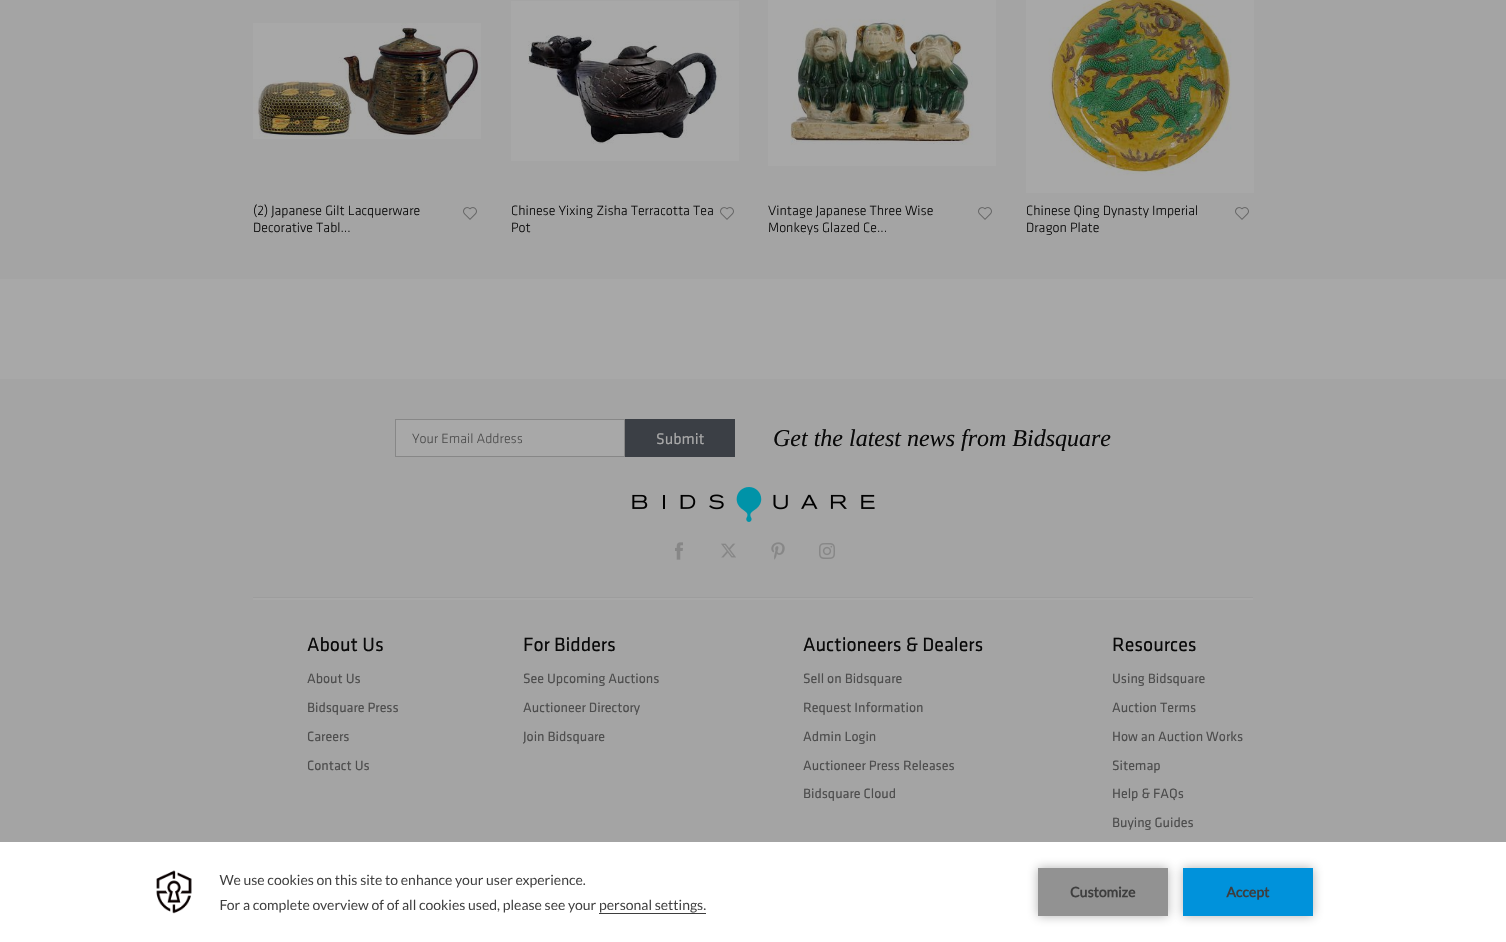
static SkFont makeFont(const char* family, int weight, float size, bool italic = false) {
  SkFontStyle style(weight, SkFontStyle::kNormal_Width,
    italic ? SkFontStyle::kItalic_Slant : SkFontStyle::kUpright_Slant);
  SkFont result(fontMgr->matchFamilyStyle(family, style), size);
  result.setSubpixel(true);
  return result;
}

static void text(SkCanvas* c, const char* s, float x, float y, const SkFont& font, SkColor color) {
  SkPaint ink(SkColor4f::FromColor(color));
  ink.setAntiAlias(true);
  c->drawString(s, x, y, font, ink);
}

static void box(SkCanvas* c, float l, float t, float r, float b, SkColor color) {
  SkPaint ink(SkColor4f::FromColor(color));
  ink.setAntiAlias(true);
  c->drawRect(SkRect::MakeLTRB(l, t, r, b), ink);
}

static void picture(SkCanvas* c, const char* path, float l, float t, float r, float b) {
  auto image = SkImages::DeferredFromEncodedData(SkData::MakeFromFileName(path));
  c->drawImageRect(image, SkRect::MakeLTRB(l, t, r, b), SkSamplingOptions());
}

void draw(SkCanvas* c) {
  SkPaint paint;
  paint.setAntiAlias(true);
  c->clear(0xffa8a8a8);
  box(c, 0, 0, 1506, 279, 0xffa4a4a4);
  picture(c, "img_01.png", 253, 23, 481, 139);
  SkFont face1 = makeFont("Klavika", 300, 14);
  text(c, "(2) Japanese Gilt Lacquerware", 253, 215, face1, 0xff090909);
  text(c, "Decorative Tabl...", 253, 232, face1, 0xff090909);
  picture(c, "img_02.png", 463, 207, 477, 220);
  picture(c, "img_03.png", 511, 1, 739, 161);
  text(c, "Chinese Yixing Zisha Terracotta Tea", 511, 215, face1, 0xff090909);
  text(c, "Pot", 511, 232, face1, 0xff090909);
  picture(c, "img_02.png", 720, 207, 734, 220);
  picture(c, "img_04.png", 768, 0, 996, 166);
  text(c, "Vintage Japanese Three Wise", 768, 215, face1, 0xff090909);
  text(c, "Monkeys Glazed Ce...", 768, 232, face1, 0xff090909);
  picture(c, "img_02.png", 978, 207, 992, 220);
  picture(c, "img_05.png", 1026, 0, 1254, 193);
  text(c, "Chinese Qing Dynasty Imperial", 1026, 215, face1, 0xff090909);
  text(c, "Dragon Plate", 1026, 232, face1, 0xff090909);
  picture(c, "img_02.png", 1235, 207, 1249, 220);
  box(c, 0, 379, 1506, 842, 0xffa4a4a4);
  paint.setColor(0xffa8a8a8);
  c->drawRect(SkRect::MakeLTRB(395.5f, 419.5f, 624.5f, 456.5f), paint);
  paint.setStyle(SkPaint::kStroke_Style);
  paint.setStrokeWidth(1);
  paint.setColor(0xff878787);
  c->drawRect(SkRect::MakeLTRB(395.5f, 419.5f, 624.5f, 456.5f), paint);
  text(c, "Your Email Address", 412, 443, face1, 0xff4d4d4d);
  box(c, 625, 419, 735, 457, 0xff3b3f45);
  SkFont face2 = makeFont("Klavika", 400, 16);
  text(c, "Submit", 656, 444, face2, 0xffa8a8a8);
  SkFont face3 = makeFont("Liberation Serif", 400, 24, true);
  text(c, "Get the latest news from Bidsquare", 773, 446, face3, 0xff090909);
  box(c, 253, 597, 1253, 598, 0xff9d9d9d);
  picture(c, "img_06.png", 632, 487, 875, 522);
  picture(c, "img_07.png", 675, 542, 683, 560);
  picture(c, "img_08.png", 721, 543, 736, 558);
  picture(c, "img_09.png", 771, 542, 785, 560);
  picture(c, "img_10.png", 819, 543, 835, 559);
  box(c, 253, 598, 1253, 600, 0xffa8a8a8);
  SkFont face4 = makeFont("Klavika", 400, 20);
  text(c, "About Us", 307, 651, face4, 0xff090909);
  SkFont face5 = makeFont("Klavika", 400, 14);
  text(c, "About Us", 307, 683, face5, 0xff4d4d4d);
  text(c, "Bidsquare Press", 307, 712, face5, 0xff4d4d4d);
  text(c, "Careers", 307, 741, face5, 0xff4d4d4d);
  text(c, "Contact Us", 307, 770, face5, 0xff4d4d4d);
  text(c, "For Bidders", 523, 651, face4, 0xff090909);
  text(c, "See Upcoming Auctions", 523, 683, face5, 0xff4d4d4d);
  text(c, "Auctioneer Directory", 523, 712, face5, 0xff4d4d4d);
  text(c, "Join Bidsquare", 523, 741, face5, 0xff4d4d4d);
  text(c, "Auctioneers & Dealers", 803, 651, face4, 0xff090909);
  text(c, "Sell on Bidsquare", 803, 683, face5, 0xff4d4d4d);
  text(c, "Request Information", 803, 712, face5, 0xff4d4d4d);
  text(c, "Admin Login", 803, 741, face5, 0xff4d4d4d);
  text(c, "Auctioneer Press Releases", 803, 770, face5, 0xff4d4d4d);
  text(c, "Bidsquare Cloud", 803, 798, face5, 0xff4d4d4d);
  text(c, "Resources", 1112, 651, face4, 0xff090909);
  text(c, "Using Bidsquare", 1112, 683, face5, 0xff4d4d4d);
  text(c, "Auction Terms", 1112, 712, face5, 0xff4d4d4d);
  text(c, "How an Auction Works", 1112, 741, face5, 0xff4d4d4d);
  text(c, "Sitemap", 1112, 770, face5, 0xff4d4d4d);
  text(c, "Help & FAQs", 1112, 798, face5, 0xff4d4d4d);
  text(c, "Buying Guides", 1112, 827, face5, 0xff4d4d4d);
  picture(c, "img_11.png", 0, 842, 1506, 942);
}
